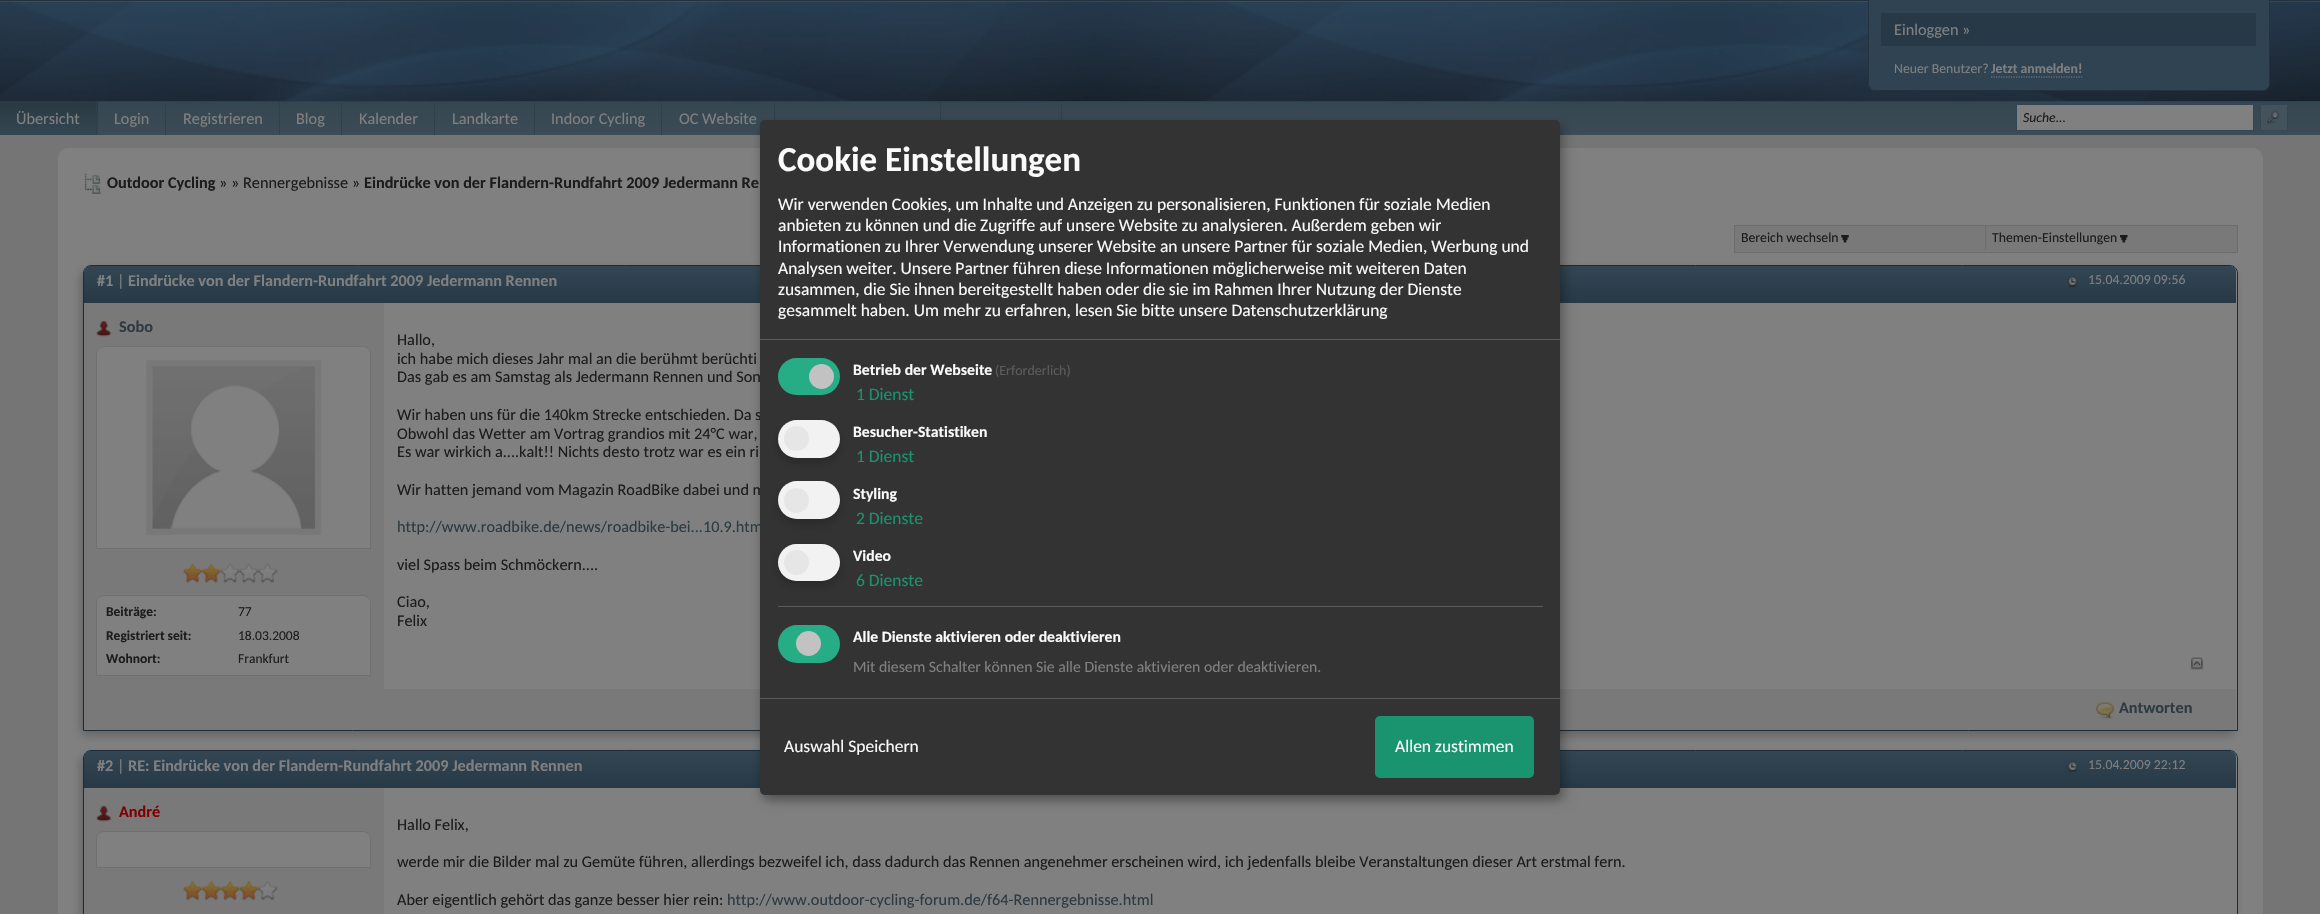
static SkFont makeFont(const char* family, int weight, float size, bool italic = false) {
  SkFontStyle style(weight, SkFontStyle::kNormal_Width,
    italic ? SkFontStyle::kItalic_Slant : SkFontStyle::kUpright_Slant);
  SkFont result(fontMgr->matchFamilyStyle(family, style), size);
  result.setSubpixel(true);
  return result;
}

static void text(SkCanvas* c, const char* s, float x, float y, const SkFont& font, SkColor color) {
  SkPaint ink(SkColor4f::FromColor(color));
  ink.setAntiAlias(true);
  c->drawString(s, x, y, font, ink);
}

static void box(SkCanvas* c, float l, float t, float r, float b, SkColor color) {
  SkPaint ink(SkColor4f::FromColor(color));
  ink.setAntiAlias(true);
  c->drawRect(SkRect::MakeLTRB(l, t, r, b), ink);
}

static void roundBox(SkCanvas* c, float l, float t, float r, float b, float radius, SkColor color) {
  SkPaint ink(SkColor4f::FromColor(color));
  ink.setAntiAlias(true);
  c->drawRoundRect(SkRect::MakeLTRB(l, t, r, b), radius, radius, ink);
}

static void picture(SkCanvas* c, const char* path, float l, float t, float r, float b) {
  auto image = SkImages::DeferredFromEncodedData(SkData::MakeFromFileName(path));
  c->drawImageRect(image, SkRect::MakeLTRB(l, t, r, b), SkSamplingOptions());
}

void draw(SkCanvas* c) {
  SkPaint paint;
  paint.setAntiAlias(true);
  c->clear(0xff757575);
  box(c, 0, 0, 2320, 1, 0xff23323e);
  picture(c, "img_01.png", 0, 1, 2320, 101);
  paint.setColor(0xff2f4352);
  c->drawPath(SkPathBuilder().moveTo(1868, 0).lineTo(2270, 0).lineTo(2270, 83).cubicTo(2270, 87.5f, 2266.5f, 91, 2262, 91).lineTo(1876, 91).cubicTo(1871.5f, 91, 1868, 87.5f, 1868, 83).close().detach(), paint);
  paint.setColor(0xff23323e);
  c->drawPath(SkPathBuilder(SkPathFillType::kEvenOdd).moveTo(1868, 0).lineTo(2270, 0).lineTo(2270, 84).cubicTo(2270, 88, 2267, 91, 2262, 91).lineTo(1875, 91).cubicTo(1871, 91, 1868, 88, 1868, 84).close().moveTo(1869, 0).lineTo(2269, 0).lineTo(2269, 84).cubicTo(2269, 87, 2266, 90, 2262, 90).lineTo(1875, 90).cubicTo(1872, 90, 1869, 87, 1869, 84).close().detach(), paint);
  box(c, 1881, 13, 2256, 46, 0xff273946);
  SkFont face1 = makeFont("Carlito", 400, 16.25f);
  text(c, "Einloggen »", 1894, 35, face1, 0xff808080);
  SkFont face2 = makeFont("Carlito", 400, 13.75f);
  text(c, "Neuer Benutzer?", 1894, 73, face2, 0xff808080);
  SkFont face3 = makeFont("Carlito", 700, 13.75f);
  text(c, "Jetzt anmelden!", 1991, 73, face3, 0xff808080);
  paint.setStyle(SkPaint::kStroke_Style);
  paint.setStrokeWidth(1.2f);
  paint.setColor(0xff808080);
  paint.setPathEffect(SkDashPathEffect::Make({{1.25f, 1.25f}}, 0));
  c->drawPath(SkPathBuilder().moveTo(1991, 77).lineTo(2082.5f, 77).detach(), paint);
  paint.setPathEffect(nullptr);
  paint.setStyle(SkPaint::kFill_Style);
  {
    const SkColor colors[] = {0xff344651, 0xff3c4c56};
    const float stops[] = {0, 1};
    const SkPoint ends[] = {{0, 101}, {0, 135}};
    paint.setShader(SkGradientShader::MakeLinear(ends, colors, stops, 2, SkTileMode::kClamp));
    paint.setAlpha(255);
  }
  c->drawRect(SkRect::MakeLTRB(98, 102, 2320, 135), paint);
  box(c, 98, 101, 2320, 102, 0xff2e404b);
  {
    const SkColor colors[] = {0xff293943, 0xff344651};
    const float stops[] = {0, 1};
    const SkPoint ends[] = {{0, 101}, {0, 135}};
    paint.setShader(SkGradientShader::MakeLinear(ends, colors, stops, 2, SkTileMode::kClamp));
    paint.setAlpha(255);
  }
  c->drawRect(SkRect::MakeLTRB(0, 101, 98, 135), paint);
  box(c, 96, 101, 97, 135, 0xff2e404b);
  text(c, "Übersicht", 16, 124, face1, 0xff808080);
  text(c, "Login", 114, 124, face1, 0xff808080);
  box(c, 165, 101, 166, 135, 0xff2e404b);
  text(c, "Registrieren", 183, 124, face1, 0xff808080);
  box(c, 279, 101, 280, 135, 0xff2e404b);
  text(c, "Blog", 296, 124, face1, 0xff808080);
  box(c, 341, 101, 342, 135, 0xff2e404b);
  text(c, "Kalender", 359, 124, face1, 0xff808080);
  box(c, 434, 101, 435, 135, 0xff2e404b);
  text(c, "Landkarte", 452, 124, face1, 0xff808080);
  box(c, 534, 101, 535, 135, 0xff2e404b);
  text(c, "Indoor Cycling", 551, 124, face1, 0xff808080);
  box(c, 661, 101, 662, 135, 0xff2e404b);
  text(c, "OC Website", 679, 124, face1, 0xff808080);
  box(c, 774, 101, 775, 120, 0xff2e404b);
  box(c, 1061, 101, 1062, 120, 0xff2e404b);
  box(c, 940, 101, 941, 120, 0xff2e404b);
  paint.setShader(nullptr);
  paint.setColor(0xff808080);
  c->drawRect(SkRect::MakeLTRB(2016.5f, 104.5f, 2253.5f, 130.5f), paint);
  paint.setStyle(SkPaint::kStroke_Style);
  paint.setStrokeWidth(1);
  paint.setColor(0xff334654);
  c->drawRect(SkRect::MakeLTRB(2016.5f, 104.5f, 2253.5f, 130.5f), paint);
  SkFont face4 = makeFont("Carlito", 400, 13.75f, true);
  text(c, "Suche...", 2023, 122, face4, 0xff1c1c1c);
  box(c, 2261, 105, 2287, 130, 0xff44525b);
  picture(c, "img_02.png", 2266, 111, 2279, 124);
  c->drawRect(SkRect::MakeLTRB(2260.5f, 104.5f, 2287.5f, 130.5f), paint);
  roundBox(c, 58, 148, 2263, 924, 10, 0xff808080);
  c->save();
  c->clipPath(SkPathBuilder(SkPathFillType::kEvenOdd).moveTo(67, 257).lineTo(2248, 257).lineTo(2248, 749).lineTo(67, 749).close().moveTo(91, 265).lineTo(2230, 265).cubicTo(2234.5f, 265, 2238, 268.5f, 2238, 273).lineTo(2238, 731).lineTo(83, 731).lineTo(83, 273).cubicTo(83, 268.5f, 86.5f, 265, 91, 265).close().detach(), true);
  paint.setStyle(SkPaint::kFill_Style);
  paint.setColor(0xff666666);
  paint.setMaskFilter(SkMaskFilter::MakeBlur(kNormal_SkBlurStyle, 4));
  c->drawRoundRect(SkRect::MakeLTRB(80, 270, 2235, 736), 8, 8, paint);
  paint.setMaskFilter(nullptr);
  c->restore();
  paint.setStyle(SkPaint::kStroke_Style);
  paint.setColor(0xff1e2b35);
  c->drawPath(SkPathBuilder().moveTo(91, 265.5f).lineTo(2230, 265.5f).cubicTo(2234, 265.5f, 2237.5f, 269, 2237.5f, 273).lineTo(2237.5f, 730.5f).lineTo(83.5f, 730.5f).lineTo(83.5f, 273).cubicTo(83.5f, 269, 87, 265.5f, 91, 265.5f).close().detach(), paint);
  paint.setStyle(SkPaint::kFill_Style);
  {
    const SkColor colors[] = {0xff334654, 0xff273946};
    const float stops[] = {0, 1};
    const SkPoint ends[] = {{84, 266}, {84, 303}};
    paint.setShader(SkGradientShader::MakeLinear(ends, colors, stops, 2, SkTileMode::kClamp));
    paint.setAlpha(255);
  }
  c->drawPath(SkPathBuilder().moveTo(90, 266).lineTo(2230, 266).cubicTo(2233.5f, 266, 2236, 268.5f, 2236, 272).lineTo(2236, 303).lineTo(84, 303).lineTo(84, 272).cubicTo(84, 268.5f, 86.5f, 266, 90, 266).close().detach(), paint);
  box(c, 84, 689, 2236, 730, 0xff797979);
  c->save();
  c->clipPath(SkPathBuilder(SkPathFillType::kEvenOdd).moveTo(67, 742).lineTo(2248, 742).lineTo(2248, 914).lineTo(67, 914).close().moveTo(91, 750).lineTo(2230, 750).cubicTo(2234.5f, 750, 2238, 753.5f, 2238, 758).lineTo(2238, 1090).lineTo(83, 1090).lineTo(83, 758).cubicTo(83, 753.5f, 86.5f, 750, 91, 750).close().detach(), true);
  paint.setShader(nullptr);
  paint.setColor(0xff666666);
  paint.setMaskFilter(SkMaskFilter::MakeBlur(kNormal_SkBlurStyle, 4));
  c->drawRoundRect(SkRect::MakeLTRB(80, 755, 2235, 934), 8, 8, paint);
  paint.setMaskFilter(nullptr);
  c->restore();
  paint.setStyle(SkPaint::kStroke_Style);
  paint.setColor(0xff1e2b35);
  c->drawPath(SkPathBuilder().moveTo(91, 750.5f).lineTo(2230, 750.5f).cubicTo(2234, 750.5f, 2237.5f, 754, 2237.5f, 758).lineTo(2237.5f, 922.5f).lineTo(83.5f, 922.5f).lineTo(83.5f, 758).cubicTo(83.5f, 754, 87, 750.5f, 91, 750.5f).close().detach(), paint);
  paint.setStyle(SkPaint::kFill_Style);
  {
    const SkColor colors[] = {0xff334654, 0xff273946};
    const float stops[] = {0, 1};
    const SkPoint ends[] = {{84, 751}, {84, 788}};
    paint.setShader(SkGradientShader::MakeLinear(ends, colors, stops, 2, SkTileMode::kClamp));
    paint.setAlpha(255);
  }
  c->drawPath(SkPathBuilder().moveTo(90, 751).lineTo(2230, 751).cubicTo(2233.5f, 751, 2236, 753.5f, 2236, 757).lineTo(2236, 788).lineTo(84, 788).lineTo(84, 757).cubicTo(84, 753.5f, 86.5f, 751, 90, 751).close().detach(), paint);
  paint.setShader(nullptr);
  paint.setColor(0x30000000);
  paint.setMaskFilter(SkMaskFilter::MakeBlur(kNormal_SkBlurStyle, 6));
  c->drawRoundRect(SkRect::MakeLTRB(766, 126, 1566, 801), 5, 5, paint);
  paint.setMaskFilter(nullptr);
  paint.setColor(0x33000000);
  paint.setMaskFilter(SkMaskFilter::MakeBlur(kNormal_SkBlurStyle, 4));
  c->drawRoundRect(SkRect::MakeLTRB(760, 125, 1560, 800), 5, 5, paint);
  paint.setMaskFilter(nullptr);
  text(c, "Wir haben uns für die 140km Strecke entschieden. Da s", 397, 420, face1, 0xff1c1c1c);
  text(c, "Wir hatten jemand vom Magazin RoadBike dabei und m", 397, 495, face1, 0xff1c1c1c);
  text(c, "http://www.roadbike.de/news/roadbike-bei...10.9.htm", 397, 532, face1, 0xff2d3a41);
  roundBox(c, 760, 120, 1560, 795, 5, 0xff333333);
  box(c, 760, 339, 1560, 340, 0xff5c5c5c);
  SkFont face5 = makeFont("Carlito", 700, 35);
  text(c, "Cookie Einstellungen", 778, 171, face5, 0xfffafafa);
  SkFont face6 = makeFont("Carlito", 400, 17.5f);
  text(c, "Wir verwenden Cookies, um Inhalte und Anzeigen zu personalisieren, Funktionen für soziale Medien", 778, 210, face6, 0xfffafafa);
  text(c, "anbieten zu können und die Zugriffe auf unsere Website zu analysieren. Außerdem geben wir", 778, 231, face6, 0xfffafafa);
  text(c, "Informationen zu Ihrer Verwendung unserer Website an unsere Partner für soziale Medien, Werbung und", 778, 252, face6, 0xfffafafa);
  text(c, "Analysen weiter. Unsere Partner führen diese Informationen möglicherweise mit weiteren Daten", 778, 274, face6, 0xfffafafa);
  text(c, "zusammen, die Sie ihnen bereitgestellt haben oder die sie im Rahmen Ihrer Nutzung der Dienste", 778, 295, face6, 0xfffafafa);
  text(c, "gesammelt haben. Um mehr zu erfahren, lesen Sie bitte unsere Datenschutzerklärung", 778, 316, face6, 0xfffafafa);
  roundBox(c, 778, 358, 840, 395, 18.5f, 0xff27ad85);
  paint.setColor(0xffc2c2c2);
  c->drawCircle(821.5f, 376.5f, 12.5f, paint);
  SkFont face7 = makeFont("Carlito", 700, 15.75f);
  text(c, "Betrieb der Webseite", 853, 375, face7, 0xfffafafa);
  SkFont face8 = makeFont("Carlito", 400, 14);
  text(c, "(Erforderlich)", 995, 375, face8, 0xff5c5c5c);
  text(c, "1 Dienst", 856, 400, face6, 0xff1a936f);
  paint.setColor(0x33000000);
  paint.setMaskFilter(SkMaskFilter::MakeBlur(kNormal_SkBlurStyle, 4));
  c->drawRoundRect(SkRect::MakeLTRB(778, 425, 840, 463), 19, 19, paint);
  paint.setMaskFilter(nullptr);
  roundBox(c, 778, 420, 840, 458, 19, 0xfff2f2f2);
  paint.setColor(0xffe6e6e6);
  c->drawCircle(796.5f, 438.5f, 12.5f, paint);
  text(c, "Besucher-Statistiken", 853, 437, face7, 0xfffafafa);
  text(c, "1 Dienst", 856, 462, face6, 0xff1a936f);
  paint.setColor(0x33000000);
  paint.setMaskFilter(SkMaskFilter::MakeBlur(kNormal_SkBlurStyle, 4));
  c->drawRoundRect(SkRect::MakeLTRB(778, 486, 840, 524), 19, 19, paint);
  paint.setMaskFilter(nullptr);
  roundBox(c, 778, 481, 840, 519, 19, 0xfff2f2f2);
  paint.setColor(0xffe6e6e6);
  c->drawCircle(796.5f, 500.5f, 12.5f, paint);
  text(c, "Styling", 853, 499, face7, 0xfffafafa);
  text(c, "2 Dienste", 856, 524, face6, 0xff1a936f);
  paint.setColor(0x33000000);
  paint.setMaskFilter(SkMaskFilter::MakeBlur(kNormal_SkBlurStyle, 4));
  c->drawRoundRect(SkRect::MakeLTRB(778, 549, 840, 586), 18.5f, 18.5f, paint);
  paint.setMaskFilter(nullptr);
  roundBox(c, 778, 544, 840, 581, 18.5f, 0xfff2f2f2);
  paint.setColor(0xffe6e6e6);
  c->drawCircle(796.5f, 562.5f, 12.5f, paint);
  text(c, "Video", 853, 561, face7, 0xfffafafa);
  text(c, "6 Dienste", 856, 586, face6, 0xff1a936f);
  box(c, 778, 606, 1543, 607, 0xff5c5c5c);
  roundBox(c, 778, 625, 840, 663, 19, 0xff27ad85);
  paint.setColor(0xffc2c2c2);
  c->drawCircle(808.5f, 643.5f, 12.5f, paint);
  text(c, "Alle Dienste aktivieren oder deaktivieren", 853, 642, face7, 0xfffafafa);
  SkFont face9 = makeFont("Carlito", 400, 15.75f);
  text(c, "Mit diesem Schalter können Sie alle Dienste aktivieren oder deaktivieren.", 853, 672, face9, 0xff808080);
  box(c, 760, 698, 1560, 699, 0xff5c5c5c);
  text(c, "Auswahl Speichern", 784, 752, face6, 0xfffafafa);
  roundBox(c, 1375, 716, 1534, 778, 5, 0xff1a936f);
  text(c, "Allen zustimmen", 1395, 752, face6, 0xfffafafa);
  picture(c, "img_03.png", 84, 173, 102, 194);
  SkFont face10 = makeFont("Carlito", 700, 16.25f);
  text(c, "Outdoor Cycling", 107, 188, face10, 0xff1c1c1c);
  text(c, "» » Rennergebnisse »", 219, 188, face1, 0xff1c1c1c);
  text(c, "Eindrücke von der Flandern-Rundfahrt 2009 Jedermann Re", 364, 188, face10, 0xff1c1c1c);
  paint.setColor(0xff797979);
  c->drawRect(SkRect::MakeLTRB(1734.5f, 225.5f, 2237.5f, 252.5f), paint);
  paint.setStyle(SkPaint::kStroke_Style);
  paint.setColor(0xff6c6c6c);
  c->drawRect(SkRect::MakeLTRB(1734.5f, 225.5f, 2237.5f, 252.5f), paint);
  text(c, "Bereich wechseln", 1741, 242, face2, 0xff1c1c1c);
  picture(c, "img_04.png", 1841, 235, 1849, 243);
  box(c, 1985, 226, 1986, 250, 0xff6c6c6c);
  text(c, "Themen-Einstellungen", 1992, 242, face2, 0xff1c1c1c);
  picture(c, "img_05.png", 2120, 235, 2128, 243);
  text(c, "#1", 97, 286, face10, 0xff808080);
  text(c, "|", 117, 286, face1, 0xff808080);
  text(c, "Eindrücke von der Flandern-Rundfahrt 2009 Jedermann Rennen", 128, 286, face10, 0xff808080);
  picture(c, "img_06.png", 2067, 276, 2078, 288);
  text(c, "15.04.2009 09:56", 2088, 284, face2, 0xff808080);
  box(c, 84, 303, 384, 689, 0xff797979);
  picture(c, "img_07.png", 96, 321, 112, 337);
  text(c, "Sobo", 119, 332, face10, 0xff2d3a41);
  paint.setStyle(SkPaint::kFill_Style);
  paint.setColor(0xff808080);
  c->drawPath(SkPathBuilder().moveTo(104, 346.5f).lineTo(363, 346.5f).cubicTo(367, 346.5f, 370.5f, 350, 370.5f, 354).lineTo(370.5f, 548.5f).lineTo(96.5f, 548.5f).lineTo(96.5f, 354).cubicTo(96.5f, 350, 100, 346.5f, 104, 346.5f).close().detach(), paint);
  paint.setStyle(SkPaint::kStroke_Style);
  paint.setColor(0xff707070);
  c->drawPath(SkPathBuilder().moveTo(104, 346.5f).lineTo(363, 346.5f).cubicTo(367, 346.5f, 370.5f, 350, 370.5f, 354).lineTo(370.5f, 548.5f).lineTo(96.5f, 548.5f).lineTo(96.5f, 354).cubicTo(96.5f, 350, 100, 346.5f, 104, 346.5f).close().detach(), paint);
  picture(c, "img_08.png", 146, 360, 322, 535);
  picture(c, "img_09.png", 183, 563, 278, 583);
  paint.setStyle(SkPaint::kFill_Style);
  paint.setColor(0xff808080);
  c->drawPath(SkPathBuilder().moveTo(104, 595.5f).lineTo(363, 595.5f).cubicTo(367, 595.5f, 370.5f, 599, 370.5f, 603).lineTo(370.5f, 675.5f).lineTo(96.5f, 675.5f).lineTo(96.5f, 603).cubicTo(96.5f, 599, 100, 595.5f, 104, 595.5f).close().detach(), paint);
  paint.setStyle(SkPaint::kStroke_Style);
  paint.setColor(0xff707070);
  c->drawPath(SkPathBuilder().moveTo(104, 595.5f).lineTo(363, 595.5f).cubicTo(367, 595.5f, 370.5f, 599, 370.5f, 603).lineTo(370.5f, 675.5f).lineTo(96.5f, 675.5f).lineTo(96.5f, 603).cubicTo(96.5f, 599, 100, 595.5f, 104, 595.5f).close().detach(), paint);
  SkFont face11 = makeFont("Carlito", 700, 13.5f);
  text(c, "Beiträge:", 106, 616, face11, 0xff1c1c1c);
  SkFont face12 = makeFont("Carlito", 400, 13.5f);
  text(c, "77", 238, 616, face12, 0xff1c1c1c);
  text(c, "Registriert seit:", 106, 640, face11, 0xff1c1c1c);
  text(c, "18.03.2008", 238, 640, face12, 0xff1c1c1c);
  text(c, "Wohnort:", 106, 663, face11, 0xff1c1c1c);
  text(c, "Frankfurt", 238, 663, face12, 0xff1c1c1c);
  text(c, "Hallo,", 397, 345, face1, 0xff1c1c1c);
  text(c, "ich habe mich dieses Jahr mal an die berühmt berüchti", 397, 364, face1, 0xff1c1c1c);
  text(c, "Das gab es am Samstag als Jedermann Rennen und Son", 397, 382, face1, 0xff1c1c1c);
  text(c, "Obwohl das Wetter am Vortrag grandios mit 24°C war,", 397, 439, face1, 0xff1c1c1c);
  text(c, "Es war wirkich a....kalt!! Nichts desto trotz war es ein ri", 397, 457, face1, 0xff1c1c1c);
  text(c, "viel Spass beim Schmöckern....", 397, 570, face1, 0xff1c1c1c);
  text(c, "Ciao,", 397, 607, face1, 0xff1c1c1c);
  text(c, "Felix", 397, 626, face1, 0xff1c1c1c);
  picture(c, "img_10.png", 2096, 702, 2114, 719);
  text(c, "Antworten", 2119, 713, face10, 0xff2d3a41);
  picture(c, "img_11.png", 2190, 657, 2204, 670);
  text(c, "#2", 97, 771, face10, 0xff808080);
  text(c, "|", 117, 771, face1, 0xff808080);
  text(c, "RE: Eindrücke von der Flandern-Rundfahrt 2009 Jedermann Rennen", 128, 771, face10, 0xff808080);
  picture(c, "img_06.png", 2067, 761, 2078, 773);
  text(c, "15.04.2009 22:12", 2088, 769, face2, 0xff808080);
  box(c, 84, 788, 384, 914, 0xff797979);
  picture(c, "img_07.png", 96, 806, 112, 822);
  text(c, "André", 119, 817, face10, 0xff800000);
  paint.setStyle(SkPaint::kFill_Style);
  paint.setColor(0xff808080);
  c->drawPath(SkPathBuilder().moveTo(104, 831.5f).lineTo(363, 831.5f).cubicTo(367, 831.5f, 370.5f, 835, 370.5f, 839).lineTo(370.5f, 867.5f).lineTo(96.5f, 867.5f).lineTo(96.5f, 839).cubicTo(96.5f, 835, 100, 831.5f, 104, 831.5f).close().detach(), paint);
  paint.setStyle(SkPaint::kStroke_Style);
  paint.setColor(0xff707070);
  c->drawPath(SkPathBuilder().moveTo(104, 831.5f).lineTo(363, 831.5f).cubicTo(367, 831.5f, 370.5f, 835, 370.5f, 839).lineTo(370.5f, 867.5f).lineTo(96.5f, 867.5f).lineTo(96.5f, 839).cubicTo(96.5f, 835, 100, 831.5f, 104, 831.5f).close().detach(), paint);
  picture(c, "img_12.png", 183, 881, 278, 900);
  text(c, "Hallo Felix,", 397, 830, face1, 0xff1c1c1c);
  text(c, "werde mir die Bilder mal zu Gemüte führen, allerdings bezweifel ich, dass dadurch das Rennen angenehmer erscheinen wird, ich jedenfalls bleibe Veranstaltungen dieser Art erstmal fern.", 397, 867, face1, 0xff1c1c1c);
  text(c, "Aber eigentlich gehört das ganze besser hier rein:", 397, 905, face1, 0xff1c1c1c);
  text(c, "http://www.outdoor-cycling-forum.de/f64-Rennergebnisse.html", 727, 905, face1, 0xff2d3a41);
}
